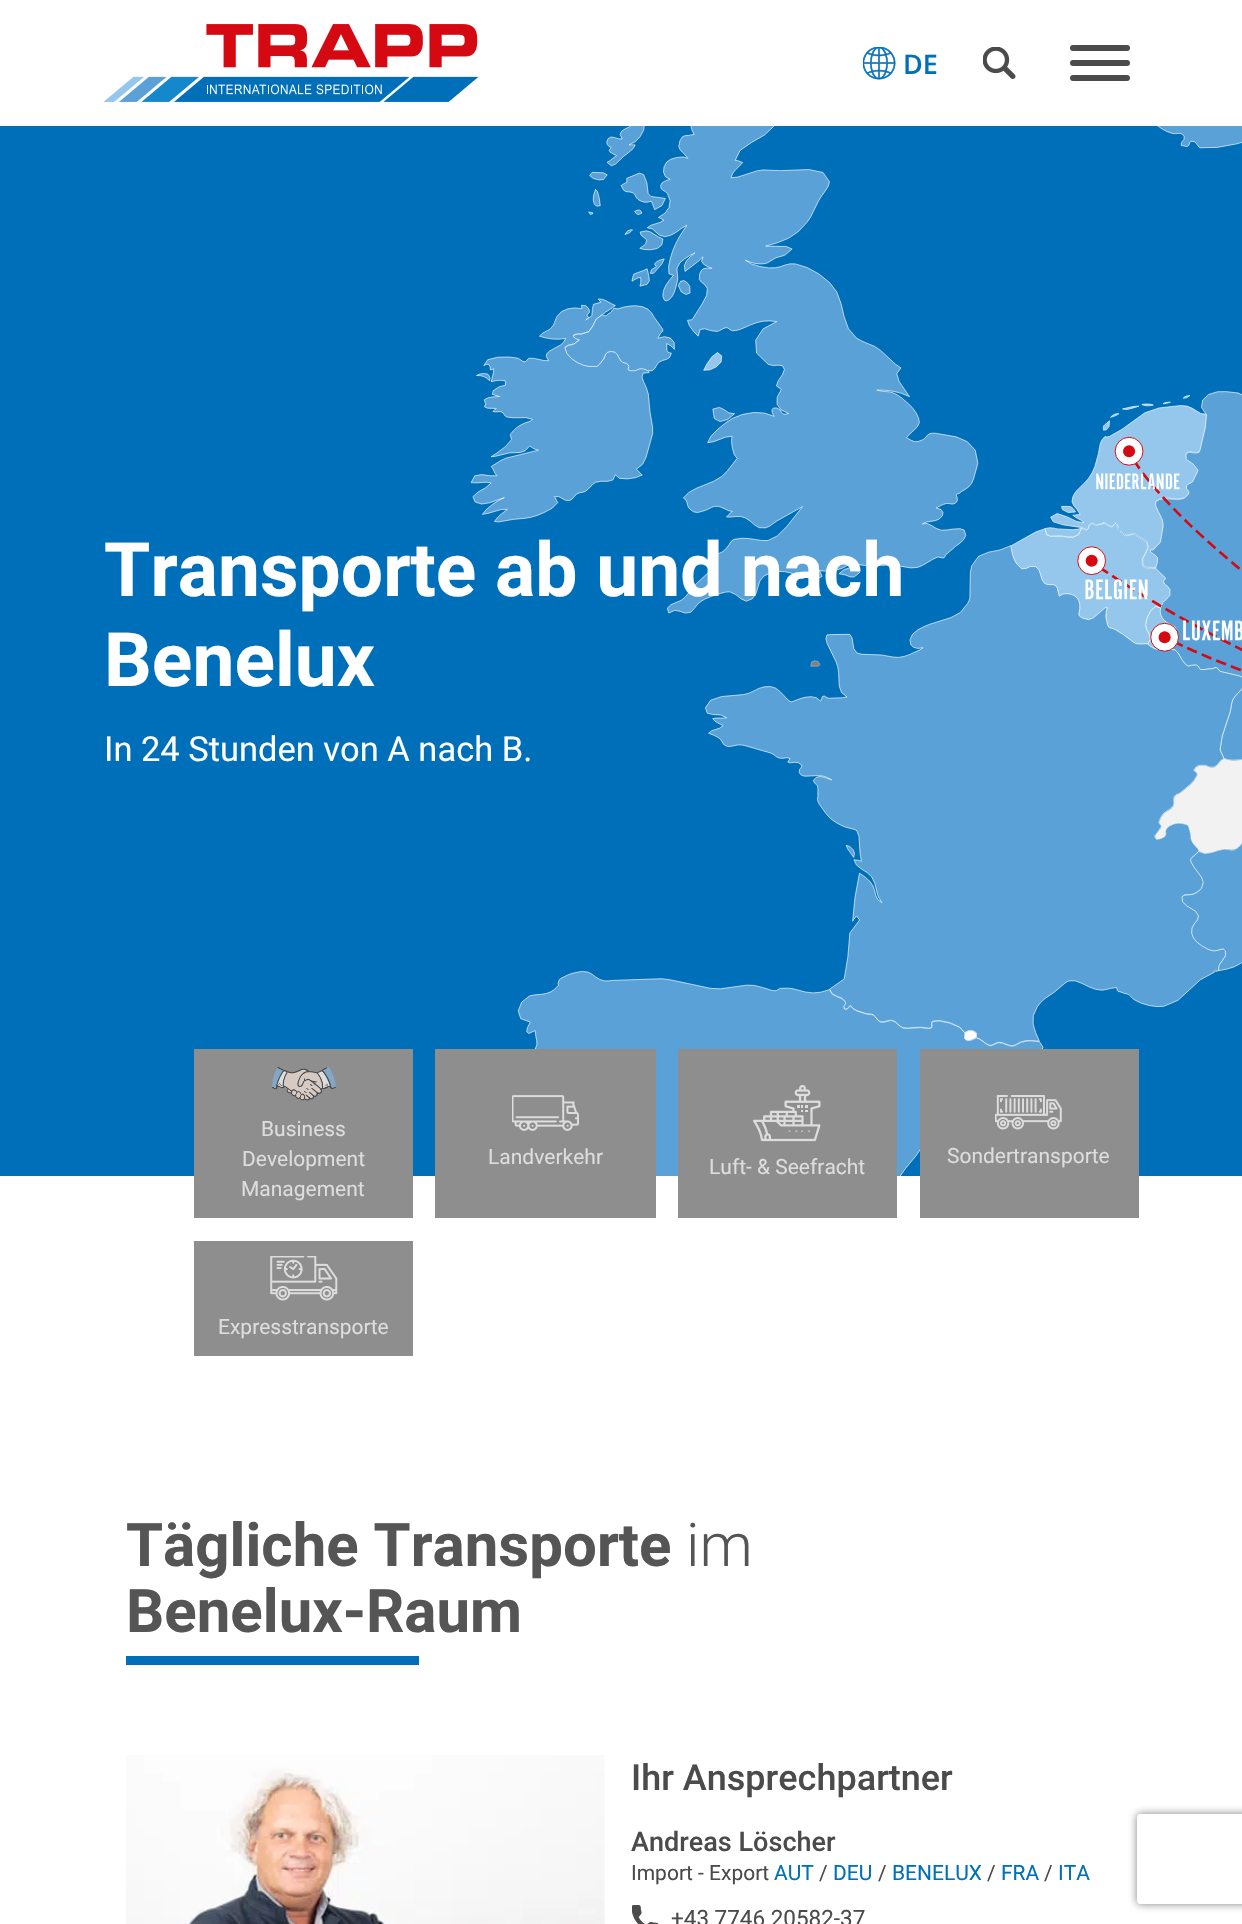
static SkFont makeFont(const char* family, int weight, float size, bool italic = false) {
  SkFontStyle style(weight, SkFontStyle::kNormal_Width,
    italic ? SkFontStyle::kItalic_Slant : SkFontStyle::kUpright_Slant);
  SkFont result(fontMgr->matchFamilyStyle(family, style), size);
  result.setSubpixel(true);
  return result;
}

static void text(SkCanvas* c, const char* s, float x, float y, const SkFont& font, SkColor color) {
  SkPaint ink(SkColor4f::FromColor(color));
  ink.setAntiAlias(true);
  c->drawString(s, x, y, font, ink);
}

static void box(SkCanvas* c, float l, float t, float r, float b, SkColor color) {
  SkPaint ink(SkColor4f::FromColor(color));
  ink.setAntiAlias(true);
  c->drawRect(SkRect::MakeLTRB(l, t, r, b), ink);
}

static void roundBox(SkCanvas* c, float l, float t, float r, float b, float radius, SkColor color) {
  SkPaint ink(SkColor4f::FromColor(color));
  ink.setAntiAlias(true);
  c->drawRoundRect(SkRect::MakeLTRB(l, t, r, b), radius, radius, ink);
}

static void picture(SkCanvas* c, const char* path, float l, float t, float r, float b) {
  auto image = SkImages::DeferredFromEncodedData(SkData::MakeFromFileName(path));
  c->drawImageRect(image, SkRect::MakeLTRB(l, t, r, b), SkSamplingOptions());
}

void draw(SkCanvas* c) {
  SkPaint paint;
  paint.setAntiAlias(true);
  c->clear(0xffffffff);
  picture(c, "img_01.png", 104, 24, 479, 102);
  picture(c, "img_02.png", 863, 47, 896, 80);
  SkFont face1 = makeFont("Open Sans", 600, 27);
  text(c, "DE", 903, 74, face1, 0xff0070b9);
  picture(c, "img_03.png", 983, 47, 1016, 79);
  roundBox(c, 1070, 45, 1130, 51, 3, 0xff4b4b4b);
  roundBox(c, 1070, 60, 1130, 66, 3, 0xff4b4b4b);
  roundBox(c, 1070, 75, 1130, 81, 3, 0xff4b4b4b);
  picture(c, "img_04.png", 0, 126, 1242, 1176);
  SkFont face2 = makeFont("Roboto", 700, 75);
  text(c, "Transporte ab und nach", 104, 596, face2, 0xffffffff);
  text(c, "Benelux", 104, 686, face2, 0xffffffff);
  SkFont face3 = makeFont("Roboto", 400, 34.5f);
  text(c, "In 24 Stunden von A nach B.", 104, 761, face3, 0xffffffff);
  box(c, 194, 1049, 413, 1218, 0xff8e8e8e);
  picture(c, "img_05.png", 272, 1067, 336, 1101);
  SkFont face4 = makeFont("Roboto", 400, 21);
  text(c, "Business", 261, 1136, face4, 0xffdddddd);
  text(c, "Development", 242, 1166, face4, 0xffdddddd);
  text(c, "Management", 241, 1196, face4, 0xffdddddd);
  box(c, 435, 1049, 656, 1218, 0xff8e8e8e);
  picture(c, "img_06.png", 512, 1095, 579, 1131);
  text(c, "Landverkehr", 488, 1164, face4, 0xffdddddd);
  box(c, 678, 1049, 897, 1218, 0xff8e8e8e);
  picture(c, "img_07.png", 753, 1085, 821, 1142);
  text(c, "Luft- & Seefracht", 709, 1174, face4, 0xffdddddd);
  box(c, 920, 1049, 1139, 1218, 0xff8e8e8e);
  picture(c, "img_08.png", 995, 1095, 1062, 1130);
  text(c, "Sondertransporte", 947, 1163, face4, 0xffdddddd);
  box(c, 194, 1241, 413, 1356, 0xff8e8e8e);
  picture(c, "img_09.png", 270, 1256, 338, 1301);
  text(c, "Expresstransporte", 218, 1334, face4, 0xffdddddd);
  SkFont face5 = makeFont("Roboto", 700, 60);
  text(c, "Tägliche Transporte", 126, 1566, face5, 0xff545554);
  SkFont face6 = makeFont("Roboto", 300, 60);
  text(c, "im", 686, 1566, face6, 0xff545554);
  text(c, "Benelux-Raum", 126, 1632, face5, 0xff545554);
  box(c, 126, 1656, 419, 1665, 0xff006fb9);
  picture(c, "img_10.png", 126, 1755, 605, 1924);
  SkFont face7 = makeFont("Roboto", 500, 36);
  text(c, "Ihr Ansprechpartner", 631, 1790, face7, 0xff4b4b4b);
  SkFont face8 = makeFont("Roboto", 500, 27);
  text(c, "Andreas Löscher", 631, 1851, face8, 0xff4b4b4b);
  text(c, "Import - Export", 631, 1880, face4, 0xff4b4b4b);
  text(c, "AUT", 774, 1880, face4, 0xff0070b9);
  text(c, "/", 819, 1880, face4, 0xff4b4b4b);
  text(c, "DEU", 833, 1880, face4, 0xff0070b9);
  text(c, "/", 878, 1880, face4, 0xff4b4b4b);
  text(c, "BENELUX", 892, 1880, face4, 0xff0070b9);
  text(c, "/", 987, 1880, face4, 0xff4b4b4b);
  text(c, "FRA", 1001, 1880, face4, 0xff0070b9);
  text(c, "/", 1044, 1880, face4, 0xff4b4b4b);
  text(c, "ITA", 1058, 1880, face4, 0xff0070b9);
  picture(c, "img_11.png", 632, 1905, 659, 1924);
  SkFont face9 = makeFont("Roboto", 400, 22.5f);
  text(c, "+43 7746 20582-37", 671, 1926, face9, 0xff4b4b4b);
  c->save();
  c->clipPath(SkPathBuilder(SkPathFillType::kEvenOdd).moveTo(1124, 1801).lineTo(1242, 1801).lineTo(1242, 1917).lineTo(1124, 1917).close().moveTo(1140, 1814).lineTo(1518, 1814).cubicTo(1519.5f, 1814, 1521, 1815.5f, 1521, 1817).lineTo(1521, 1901).cubicTo(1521, 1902.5f, 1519.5f, 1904, 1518, 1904).lineTo(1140, 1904).cubicTo(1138.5f, 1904, 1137, 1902.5f, 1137, 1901).lineTo(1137, 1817).cubicTo(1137, 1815.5f, 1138.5f, 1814, 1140, 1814).close().detach(), true);
  paint.setColor(0xff808080);
  paint.setMaskFilter(SkMaskFilter::MakeBlur(kNormal_SkBlurStyle, 4));
  c->drawRoundRect(SkRect::MakeLTRB(1137, 1814, 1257, 1904), 3, 3, paint);
  paint.setMaskFilter(nullptr);
  c->restore();
}
